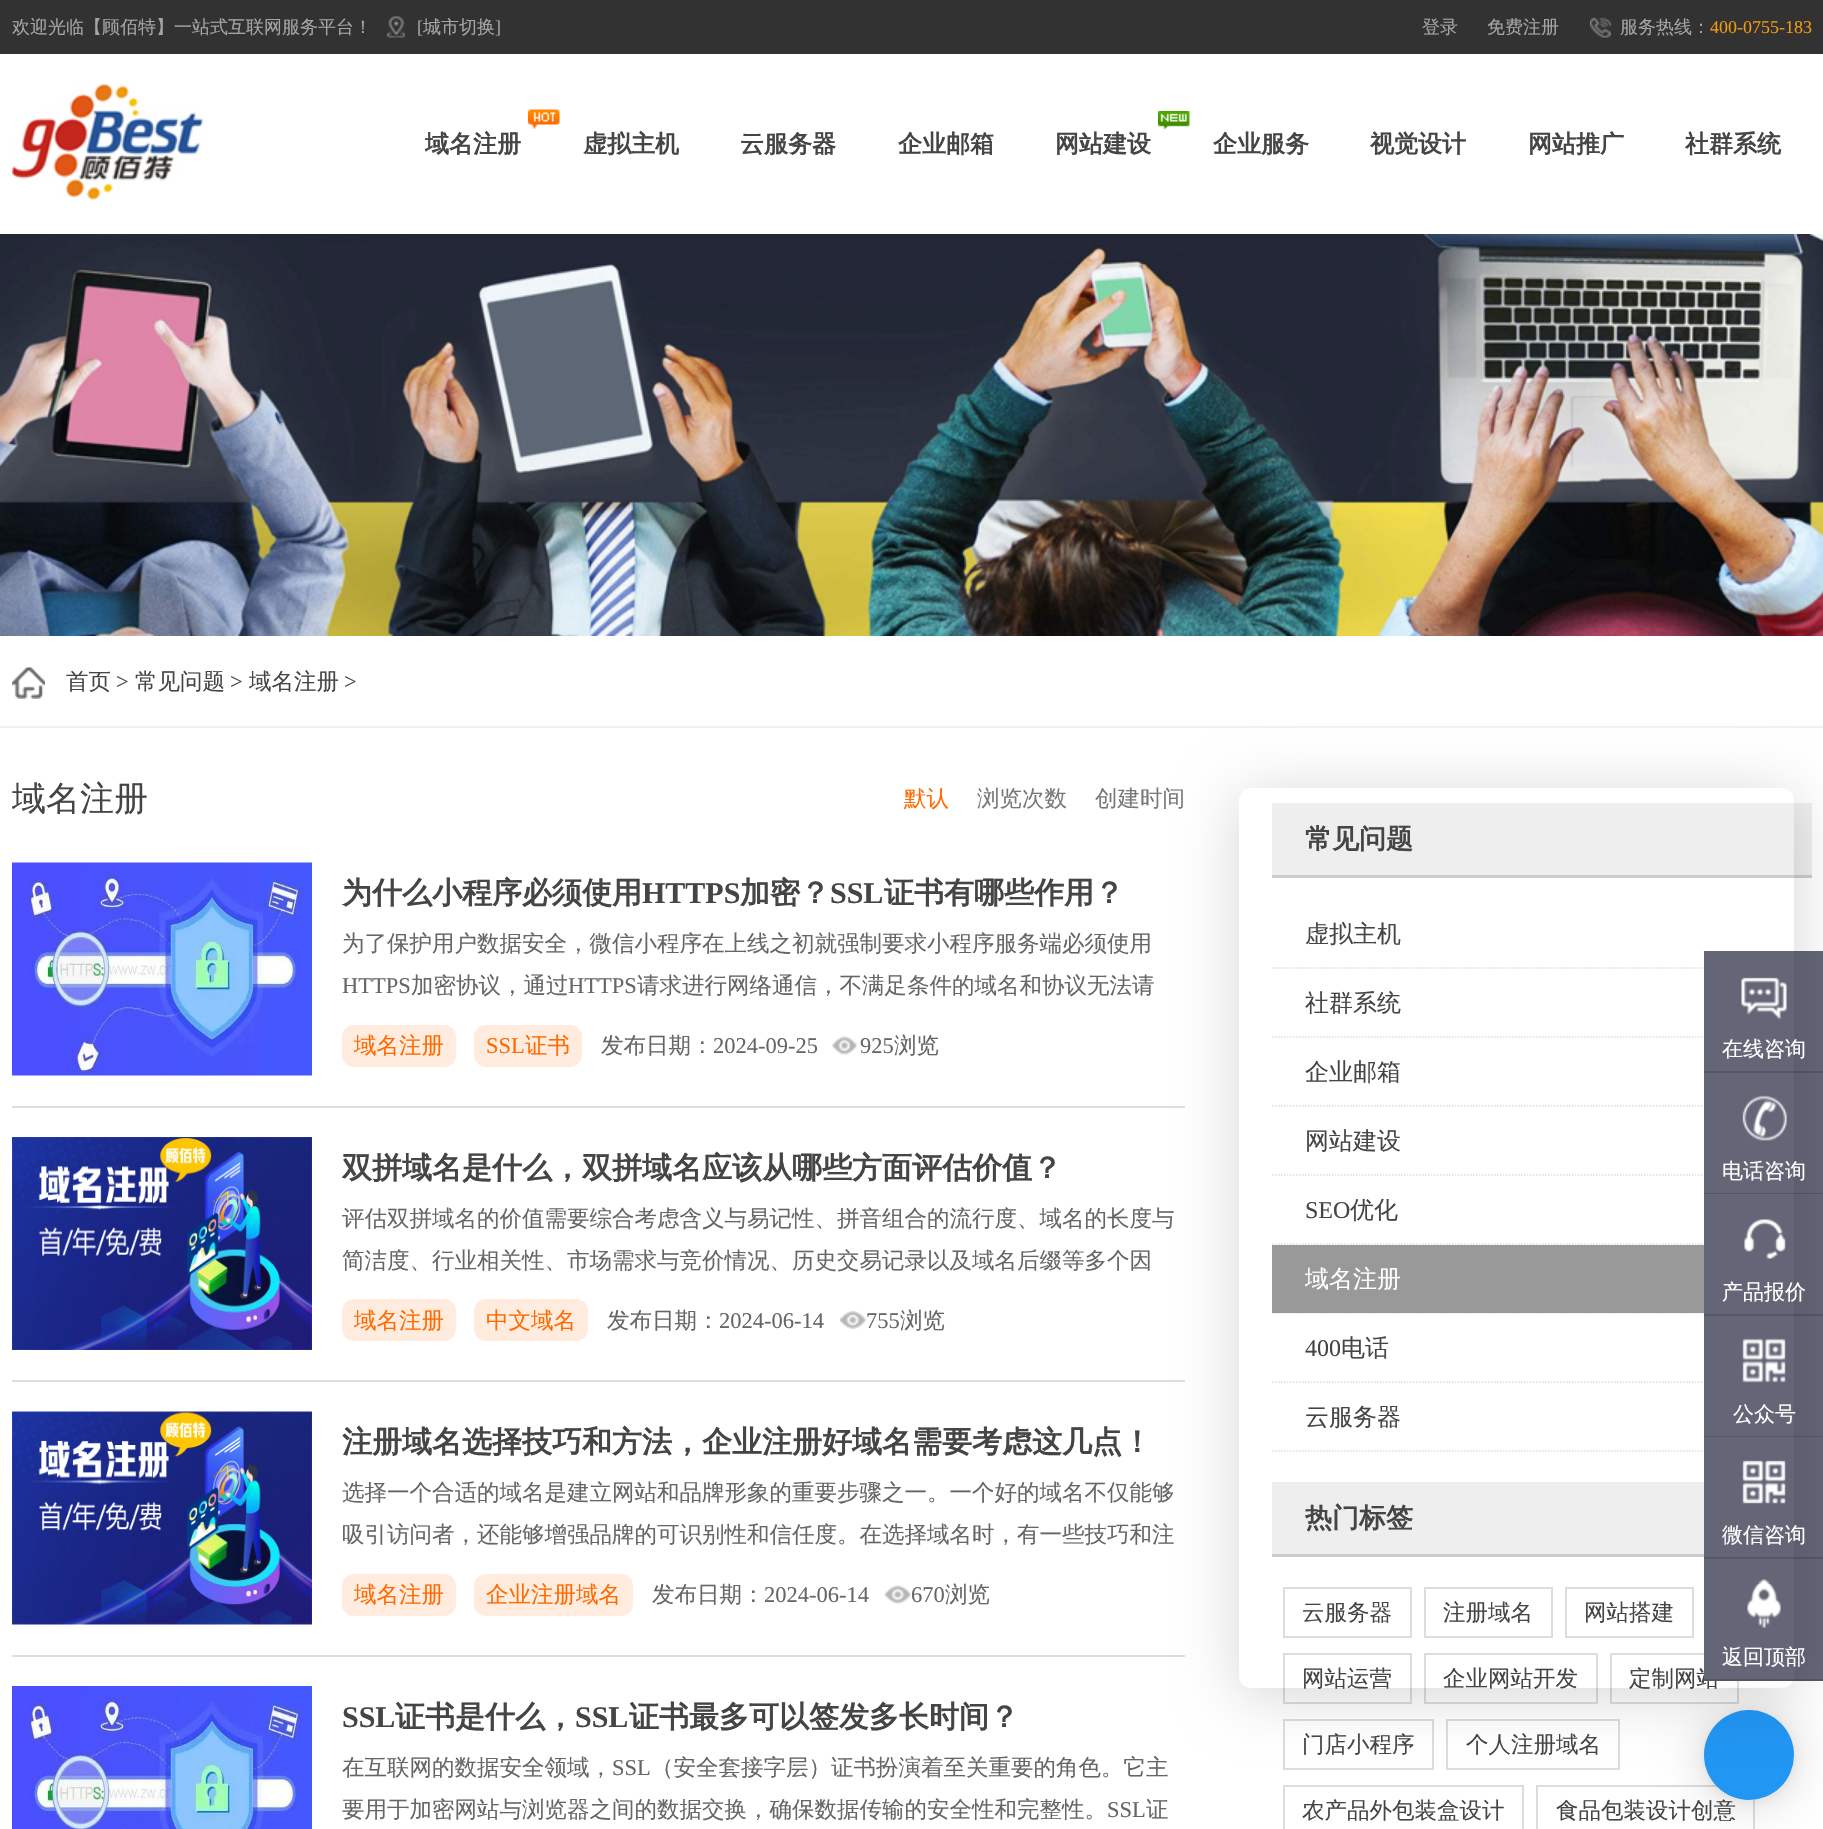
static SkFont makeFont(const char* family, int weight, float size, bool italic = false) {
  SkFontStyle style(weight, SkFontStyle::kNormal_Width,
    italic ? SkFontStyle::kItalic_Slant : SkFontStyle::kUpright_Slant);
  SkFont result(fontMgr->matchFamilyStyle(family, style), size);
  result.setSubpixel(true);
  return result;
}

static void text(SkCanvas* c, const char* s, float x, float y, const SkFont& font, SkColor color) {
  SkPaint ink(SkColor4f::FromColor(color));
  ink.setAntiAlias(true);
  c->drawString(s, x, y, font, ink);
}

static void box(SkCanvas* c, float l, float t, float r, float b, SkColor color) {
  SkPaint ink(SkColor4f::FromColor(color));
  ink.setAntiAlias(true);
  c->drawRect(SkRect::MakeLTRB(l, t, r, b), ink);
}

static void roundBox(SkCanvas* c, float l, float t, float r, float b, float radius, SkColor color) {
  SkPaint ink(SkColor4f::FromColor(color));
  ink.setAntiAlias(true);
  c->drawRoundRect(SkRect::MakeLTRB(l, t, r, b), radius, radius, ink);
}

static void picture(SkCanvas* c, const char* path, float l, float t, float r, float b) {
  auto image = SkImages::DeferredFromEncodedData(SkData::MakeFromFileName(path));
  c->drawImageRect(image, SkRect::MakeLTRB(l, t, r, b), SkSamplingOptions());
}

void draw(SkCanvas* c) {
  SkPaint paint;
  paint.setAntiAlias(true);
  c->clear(0xffffffff);
  box(c, 0, 0, 1823, 54, 0xff323232);
  SkFont face1 = makeFont("WenQuanYi Zen Hei", 500, 18);
  text(c, "欢迎光临【顾佰特】一站式互联网服务平台！", 12, 33, face1, 0xffa5a5a5);
  picture(c, "img_01.png", 387, 16, 405, 38);
  SkFont face2 = makeFont("Liberation Serif", 400, 18);
  text(c, "[", 417, 33, face2, 0xffa5a5a5);
  text(c, "城市切换", 423, 33, face1, 0xffa5a5a5);
  text(c, "]", 495, 33, face2, 0xffa5a5a5);
  text(c, "登录", 1422, 33, face1, 0xffa5a5a5);
  text(c, "免费注册", 1487, 33, face1, 0xffa5a5a5);
  picture(c, "img_02.png", 1590, 17, 1611, 38);
  text(c, "服务热线：", 1620, 33, face1, 0xffa5a5a5);
  text(c, "400-0755-183", 1710, 33, face2, 0xffef9b12);
  picture(c, "img_03.png", 12, 84, 203, 200);
  picture(c, "img_04.png", 528, 109, 560, 129);
  SkFont face3 = makeFont("WenQuanYi Zen Hei", 700, 24);
  text(c, "域名注册", 425, 152, face3, 0xff454545);
  text(c, "虚拟主机", 583, 152, face3, 0xff454545);
  text(c, "云服务器", 740, 152, face3, 0xff454545);
  text(c, "企业邮箱", 898, 152, face3, 0xff454545);
  picture(c, "img_05.png", 1158, 111, 1190, 129);
  text(c, "网站建设", 1055, 152, face3, 0xff454545);
  text(c, "企业服务", 1213, 152, face3, 0xff454545);
  text(c, "视觉设计", 1370, 152, face3, 0xff454545);
  text(c, "网站推广", 1528, 152, face3, 0xff454545);
  text(c, "社群系统", 1685, 152, face3, 0xff454545);
  picture(c, "img_06.png", 0, 234, 1823, 636);
  box(c, 0, 726, 1823, 728, 0xfff1f1f1);
  picture(c, "img_07.png", 12, 667, 45, 699);
  SkFont face4 = makeFont("WenQuanYi Zen Hei", 500, 22.5f);
  text(c, "首页", 66, 689, face4, 0xff454545);
  SkFont face5 = makeFont("Liberation Serif", 400, 22.5f);
  text(c, ">", 116, 689, face5, 0xff454545);
  text(c, "常见问题", 135, 689, face4, 0xff454545);
  text(c, ">", 230, 689, face5, 0xff454545);
  text(c, "域名注册", 249, 689, face4, 0xff454545);
  text(c, ">", 344, 689, face5, 0xff454545);
  paint.setStyle(SkPaint::kStroke_Style);
  paint.setStrokeWidth(2);
  paint.setColor(0xffdddddd);
  c->drawRect(SkRect::MakeLTRB(1611, 1654, 1738, 1703), paint);
  c->drawRect(SkRect::MakeLTRB(1537, 1786, 1754, 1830), paint);
  text(c, "定制网站", 1629, 1686, face4, 0xff454545);
  box(c, 1704, 1559, 1823, 1679, 0xff646577);
  box(c, 1704, 1679, 1823, 1681, 0xff555666);
  paint.setStyle(SkPaint::kFill_Style);
  paint.setColor(0x29000000);
  paint.setMaskFilter(SkMaskFilter::MakeBlur(kNormal_SkBlurStyle, 24));
  c->drawRoundRect(SkRect::MakeLTRB(1704, 1713, 1794, 1803), 45, 45, paint);
  paint.setMaskFilter(nullptr);
  paint.setColor(0x0f000000);
  paint.setMaskFilter(SkMaskFilter::MakeBlur(kNormal_SkBlurStyle, 4.5f));
  c->drawRoundRect(SkRect::MakeLTRB(1704, 1712, 1794, 1802), 45, 45, paint);
  paint.setMaskFilter(nullptr);
  text(c, "食品包装设计创意", 1556, 1818, face4, 0xff454545);
  paint.setColor(0xff2196f3);
  c->drawCircle(1749, 1755, 45, paint);
  box(c, 12, 1106, 1185, 1108, 0xffdedede);
  box(c, 12, 1380, 1185, 1382, 0xffdedede);
  box(c, 12, 1655, 1185, 1657, 0xffdedede);
  box(c, 1272, 803, 1812, 875, 0xffeeeeee);
  box(c, 1272, 875, 1812, 878, 0xffcccccc);
  paint.setStyle(SkPaint::kStroke_Style);
  paint.setStrokeWidth(1.5f);
  paint.setColor(0xffdddddd);
  paint.setPathEffect(SkDashPathEffect::Make({{1.5f, 1.5f}}, 0));
  c->drawPath(SkPathBuilder().moveTo(1272, 968).lineTo(1812, 968).detach(), paint);
  paint.setPathEffect(nullptr);
  paint.setPathEffect(SkDashPathEffect::Make({{1.5f, 1.5f}}, 0));
  c->drawPath(SkPathBuilder().moveTo(1272, 1037).lineTo(1812, 1037).detach(), paint);
  paint.setPathEffect(nullptr);
  paint.setPathEffect(SkDashPathEffect::Make({{1.5f, 1.5f}}, 0));
  c->drawPath(SkPathBuilder().moveTo(1272, 1106).lineTo(1812, 1106).detach(), paint);
  paint.setPathEffect(nullptr);
  paint.setPathEffect(SkDashPathEffect::Make({{1.5f, 1.5f}}, 0));
  c->drawPath(SkPathBuilder().moveTo(1272, 1175).lineTo(1812, 1175).detach(), paint);
  paint.setPathEffect(nullptr);
  paint.setPathEffect(SkDashPathEffect::Make({{1.5f, 1.5f}}, 0));
  c->drawPath(SkPathBuilder().moveTo(1272, 1244).lineTo(1812, 1244).detach(), paint);
  paint.setPathEffect(nullptr);
  paint.setPathEffect(SkDashPathEffect::Make({{1.5f, 1.5f}}, 0));
  c->drawPath(SkPathBuilder().moveTo(1272, 1313).lineTo(1812, 1313).detach(), paint);
  paint.setPathEffect(nullptr);
  box(c, 1272, 1245, 1704, 1313, 0xff999999);
  paint.setPathEffect(SkDashPathEffect::Make({{1.5f, 1.5f}}, 0));
  c->drawPath(SkPathBuilder().moveTo(1272, 1382).lineTo(1812, 1382).detach(), paint);
  paint.setPathEffect(nullptr);
  paint.setPathEffect(SkDashPathEffect::Make({{1.5f, 1.5f}}, 0));
  c->drawPath(SkPathBuilder().moveTo(1272, 1451).lineTo(1812, 1451).detach(), paint);
  paint.setPathEffect(nullptr);
  box(c, 1272, 1482, 1704, 1554, 0xffeeeeee);
  box(c, 1272, 1554, 1704, 1557, 0xffcccccc);
  paint.setStrokeWidth(2);
  c->drawRect(SkRect::MakeLTRB(1284, 1588, 1411, 1637), paint);
  c->drawRect(SkRect::MakeLTRB(1425, 1588, 1552, 1637), paint);
  c->drawRect(SkRect::MakeLTRB(1566, 1588, 1693, 1637), paint);
  c->drawRect(SkRect::MakeLTRB(1284, 1654, 1411, 1703), paint);
  c->drawRect(SkRect::MakeLTRB(1425, 1654, 1597, 1703), paint);
  c->drawRect(SkRect::MakeLTRB(1284, 1720, 1433, 1769), paint);
  c->drawRect(SkRect::MakeLTRB(1447, 1720, 1619, 1769), paint);
  c->drawRect(SkRect::MakeLTRB(1284, 1786, 1523, 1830), paint);
  box(c, 1704, 951, 1823, 1071, 0xff646577);
  picture(c, "img_15.png", 1741, 977, 1787, 1019);
  box(c, 1704, 1071, 1823, 1073, 0xff555666);
  box(c, 1704, 1073, 1823, 1193, 0xff646577);
  picture(c, "img_16.png", 1742, 1095, 1787, 1141);
  box(c, 1704, 1193, 1823, 1194, 0xff555666);
  box(c, 1704, 1194, 1823, 1314, 0xff646577);
  picture(c, "img_17.png", 1744, 1219, 1786, 1259);
  box(c, 1704, 1314, 1823, 1316, 0xff555666);
  box(c, 1704, 1316, 1823, 1436, 0xff646577);
  picture(c, "img_18.png", 1742, 1338, 1786, 1383);
  box(c, 1704, 1436, 1823, 1437, 0xff555666);
  box(c, 1704, 1437, 1823, 1557, 0xff646577);
  picture(c, "img_19.png", 1742, 1460, 1786, 1504);
  box(c, 1704, 1557, 1823, 1559, 0xff555666);
  picture(c, "img_20.png", 1747, 1579, 1781, 1628);
  c->save();
  c->clipPath(SkPathBuilder(SkPathFillType::kEvenOdd).moveTo(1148, 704).lineTo(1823, 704).lineTo(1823, 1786).lineTo(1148, 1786).close().moveTo(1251, 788).lineTo(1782, 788).cubicTo(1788.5f, 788, 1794, 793.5f, 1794, 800).lineTo(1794, 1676).cubicTo(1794, 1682.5f, 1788.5f, 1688, 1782, 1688).lineTo(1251, 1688).cubicTo(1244.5f, 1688, 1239, 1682.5f, 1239, 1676).lineTo(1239, 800).cubicTo(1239, 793.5f, 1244.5f, 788, 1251, 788).close().detach(), true);
  paint.setStyle(SkPaint::kFill_Style);
  paint.setColor(0x29000000);
  paint.setMaskFilter(SkMaskFilter::MakeBlur(kNormal_SkBlurStyle, 30));
  c->drawRoundRect(SkRect::MakeLTRB(1239, 795, 1794, 1695), 12, 12, paint);
  paint.setMaskFilter(nullptr);
  c->restore();
  SkFont face6 = makeFont("WenQuanYi Zen Hei", 500, 34);
  text(c, "域名注册", 12, 810, face6, 0xff454545);
  text(c, "默认", 904, 806, face4, 0xffff6a00);
  text(c, "浏览次数", 977, 806, face4, 0xff787878);
  text(c, "创建时间", 1095, 806, face4, 0xff787878);
  picture(c, "img_08.png", 12, 862, 312, 1076);
  SkFont face7 = makeFont("WenQuanYi Zen Hei", 700, 30);
  text(c, "为什么小程序必须使用", 342, 903, face7, 0xff454545);
  SkFont face8 = makeFont("Liberation Serif", 700, 30);
  text(c, "HTTPS", 642, 903, face8, 0xff454545);
  text(c, "加密？", 740, 903, face7, 0xff454545);
  text(c, "SSL", 830, 903, face8, 0xff454545);
  text(c, "证书有哪些作用？", 884, 903, face7, 0xff454545);
  text(c, "为了保护用户数据安全，微信小程序在上线之初就强制要求小程序服务端必须使用", 342, 951, face4, 0xff666666);
  text(c, "HTTPS", 342, 993, face5, 0xff666666);
  text(c, "加密协议，通过", 411, 993, face4, 0xff666666);
  text(c, "HTTPS", 568, 993, face5, 0xff666666);
  text(c, "请求进行网络通信，不满足条件的域名和协议无法请", 637, 993, face4, 0xff666666);
  roundBox(c, 342, 1025, 456, 1067, 12, 0xffffecdf);
  text(c, "域名注册", 354, 1053, face4, 0xffff6a00);
  roundBox(c, 474, 1025, 582, 1067, 12, 0xffffecdf);
  text(c, "SSL", 486, 1053, face5, 0xffff6a00);
  text(c, "证书", 525, 1053, face4, 0xffff6a00);
  text(c, "发布日期：", 601, 1053, face4, 0xff666666);
  text(c, "2024-09-25", 713, 1053, face5, 0xff666666);
  picture(c, "img_09.png", 832, 1036, 857, 1055);
  text(c, "925", 860, 1053, face5, 0xff666666);
  text(c, "浏览", 894, 1053, face4, 0xff666666);
  picture(c, "img_10.png", 12, 1137, 312, 1350);
  text(c, "双拼域名是什么，双拼域名应该从哪些方面评估价值？", 342, 1178, face7, 0xff454545);
  text(c, "评估双拼域名的价值需要综合考虑含义与易记性、拼音组合的流行度、域名的长度与", 342, 1226, face4, 0xff666666);
  text(c, "简洁度、行业相关性、市场需求与竞价情况、历史交易记录以及域名后缀等多个因", 342, 1268, face4, 0xff666666);
  roundBox(c, 342, 1299, 456, 1341, 12, 0xffffecdf);
  text(c, "域名注册", 354, 1328, face4, 0xffff6a00);
  roundBox(c, 474, 1299, 588, 1341, 12, 0xffffecdf);
  text(c, "中文域名", 486, 1328, face4, 0xffff6a00);
  text(c, "发布日期：", 607, 1328, face4, 0xff666666);
  text(c, "2024-06-14", 719, 1328, face5, 0xff666666);
  picture(c, "img_11.png", 840, 1311, 866, 1329);
  text(c, "755", 866, 1328, face5, 0xff666666);
  text(c, "浏览", 900, 1328, face4, 0xff666666);
  picture(c, "img_12.png", 12, 1411, 312, 1625);
  text(c, "注册域名选择技巧和方法，企业注册好域名需要考虑这几点！", 342, 1452, face7, 0xff454545);
  text(c, "选择一个合适的域名是建立网站和品牌形象的重要步骤之一。一个好的域名不仅能够", 342, 1500, face4, 0xff666666);
  text(c, "吸引访问者，还能够增强品牌的可识别性和信任度。在选择域名时，有一些技巧和注", 342, 1542, face4, 0xff666666);
  roundBox(c, 342, 1574, 456, 1616, 12, 0xffffecdf);
  text(c, "域名注册", 354, 1602, face4, 0xffff6a00);
  roundBox(c, 474, 1574, 633, 1616, 12, 0xffffecdf);
  text(c, "企业注册域名", 486, 1602, face4, 0xffff6a00);
  text(c, "发布日期：", 652, 1602, face4, 0xff666666);
  text(c, "2024-06-14", 764, 1602, face5, 0xff666666);
  picture(c, "img_13.png", 885, 1585, 911, 1604);
  text(c, "670", 911, 1602, face5, 0xff666666);
  text(c, "浏览", 945, 1602, face4, 0xff666666);
  picture(c, "img_14.png", 12, 1686, 312, 1829);
  text(c, "SSL", 342, 1727, face8, 0xff454545);
  text(c, "证书是什么，", 395, 1727, face7, 0xff454545);
  text(c, "SSL", 575, 1727, face8, 0xff454545);
  text(c, "证书最多可以签发多长时间？", 629, 1727, face7, 0xff454545);
  text(c, "在互联网的数据安全领域，", 342, 1775, face4, 0xff666666);
  text(c, "SSL", 612, 1775, face5, 0xff666666);
  text(c, "（安全套接字层）证书扮演着至关重要的角色。它主", 651, 1775, face4, 0xff666666);
  text(c, "要用于加密网站与浏览器之间的数据交换，确保数据传输的安全性和完整性。", 342, 1817, face4, 0xff666666);
  text(c, "SSL", 1107, 1817, face5, 0xff666666);
  text(c, "证", 1146, 1817, face4, 0xff666666);
  SkFont face9 = makeFont("WenQuanYi Zen Hei", 700, 27);
  text(c, "常见问题", 1305, 848, face9, 0xff454545);
  SkFont face10 = makeFont("WenQuanYi Zen Hei", 500, 24);
  text(c, "虚拟主机", 1305, 942, face10, 0xff454545);
  text(c, "社群系统", 1305, 1011, face10, 0xff454545);
  text(c, "企业邮箱", 1305, 1080, face10, 0xff454545);
  text(c, "网站建设", 1305, 1149, face10, 0xff454545);
  SkFont face11 = makeFont("Liberation Serif", 400, 24);
  text(c, "SEO", 1305, 1218, face11, 0xff454545);
  text(c, "优化", 1350, 1218, face10, 0xff454545);
  text(c, "域名注册", 1305, 1287, face10, 0xffffffff);
  text(c, "400", 1305, 1356, face11, 0xff454545);
  text(c, "电话", 1341, 1356, face10, 0xff454545);
  text(c, "云服务器", 1305, 1425, face10, 0xff454545);
  text(c, "热门标签", 1305, 1527, face9, 0xff454545);
  text(c, "云服务器", 1302, 1620, face4, 0xff454545);
  text(c, "注册域名", 1443, 1620, face4, 0xff454545);
  text(c, "网站搭建", 1584, 1620, face4, 0xff454545);
  text(c, "网站运营", 1302, 1686, face4, 0xff454545);
  text(c, "企业网站开发", 1443, 1686, face4, 0xff454545);
  text(c, "门店小程序", 1302, 1752, face4, 0xff454545);
  text(c, "个人注册域名", 1466, 1752, face4, 0xff454545);
  text(c, "农产品外包装盒设计", 1302, 1818, face4, 0xff454545);
  SkFont face12 = makeFont("WenQuanYi Zen Hei", 500, 21);
  text(c, "在线咨询", 1722, 1056, face12, 0xffffffff);
  text(c, "电话咨询", 1722, 1178, face12, 0xffffffff);
  text(c, "产品报价", 1722, 1299, face12, 0xffffffff);
  text(c, "公众号", 1733, 1421, face12, 0xffffffff);
  text(c, "微信咨询", 1722, 1542, face12, 0xffffffff);
  text(c, "返回顶部", 1722, 1664, face12, 0xffffffff);
}
